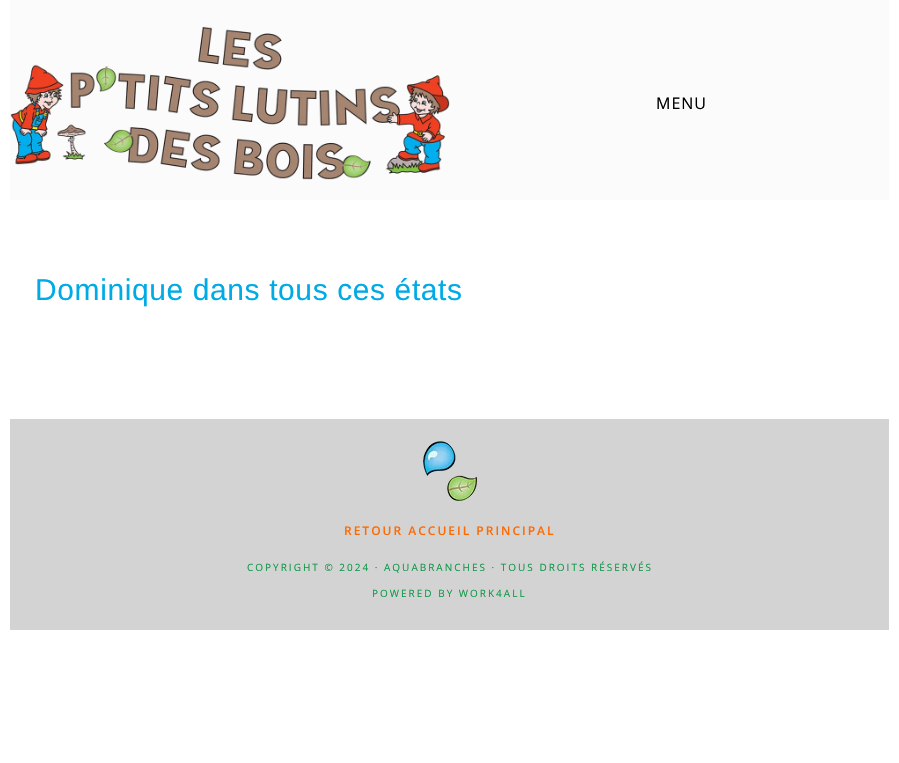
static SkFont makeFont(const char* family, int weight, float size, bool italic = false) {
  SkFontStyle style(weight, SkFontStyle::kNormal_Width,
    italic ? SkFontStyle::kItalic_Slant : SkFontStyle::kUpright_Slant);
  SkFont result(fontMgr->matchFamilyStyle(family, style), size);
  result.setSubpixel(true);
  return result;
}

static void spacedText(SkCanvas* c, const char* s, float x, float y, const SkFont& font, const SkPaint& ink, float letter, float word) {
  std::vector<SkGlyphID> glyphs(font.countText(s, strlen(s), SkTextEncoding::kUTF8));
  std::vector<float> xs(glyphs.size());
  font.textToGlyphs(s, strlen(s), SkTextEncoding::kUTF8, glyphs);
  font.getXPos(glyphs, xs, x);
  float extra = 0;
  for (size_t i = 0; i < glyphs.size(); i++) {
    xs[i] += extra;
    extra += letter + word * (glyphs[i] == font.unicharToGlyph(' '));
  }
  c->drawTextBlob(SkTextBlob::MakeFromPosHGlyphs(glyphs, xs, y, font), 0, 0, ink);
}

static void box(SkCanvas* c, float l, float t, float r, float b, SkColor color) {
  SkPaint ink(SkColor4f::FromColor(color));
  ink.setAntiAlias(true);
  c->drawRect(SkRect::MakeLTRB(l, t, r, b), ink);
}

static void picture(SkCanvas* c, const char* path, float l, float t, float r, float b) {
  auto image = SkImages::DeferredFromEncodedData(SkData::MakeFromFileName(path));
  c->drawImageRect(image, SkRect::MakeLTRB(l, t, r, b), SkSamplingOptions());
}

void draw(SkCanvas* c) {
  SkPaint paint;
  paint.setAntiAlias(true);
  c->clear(0xffffffff);
  box(c, 10, 0, 889, 200, 0xfffbfbfb);
  picture(c, "img_01.png", 10, 26, 450, 180);
  SkFont face1 = makeFont("Open Sans", 400, 16);
  paint.setColor(0xff000000);
  spacedText(c, "MENU", 656, 109, face1, paint, 1, 0);
  SkFont face2 = makeFont("Liberation Sans", 400, 30);
  paint.setColor(0xff00abe5);
  spacedText(c, "Dominique dans tous ces états", 35, 300, face2, paint, 0.6f, 0);
  box(c, 10, 419, 889, 630, 0xffd3d3d3);
  picture(c, "img_02.png", 423, 441, 477, 501);
  SkFont face3 = makeFont("Open Sans", 600, 12);
  paint.setColor(0xffff6a00);
  spacedText(c, "RETOUR ACCUEIL PRINCIPAL", 344, 535, face3, paint, 2, 0);
  SkFont face4 = makeFont("Open Sans", 400, 10);
  paint.setColor(0xff0e9847);
  spacedText(c, "COPYRIGHT © 2024 · AQUABRANCHES · TOUS DROITS RÉSERVÉS", 247, 571, face4, paint, 2, 0);
  spacedText(c, "POWERED BY WORK4ALL", 372, 597, face4, paint, 2, 0);
}
